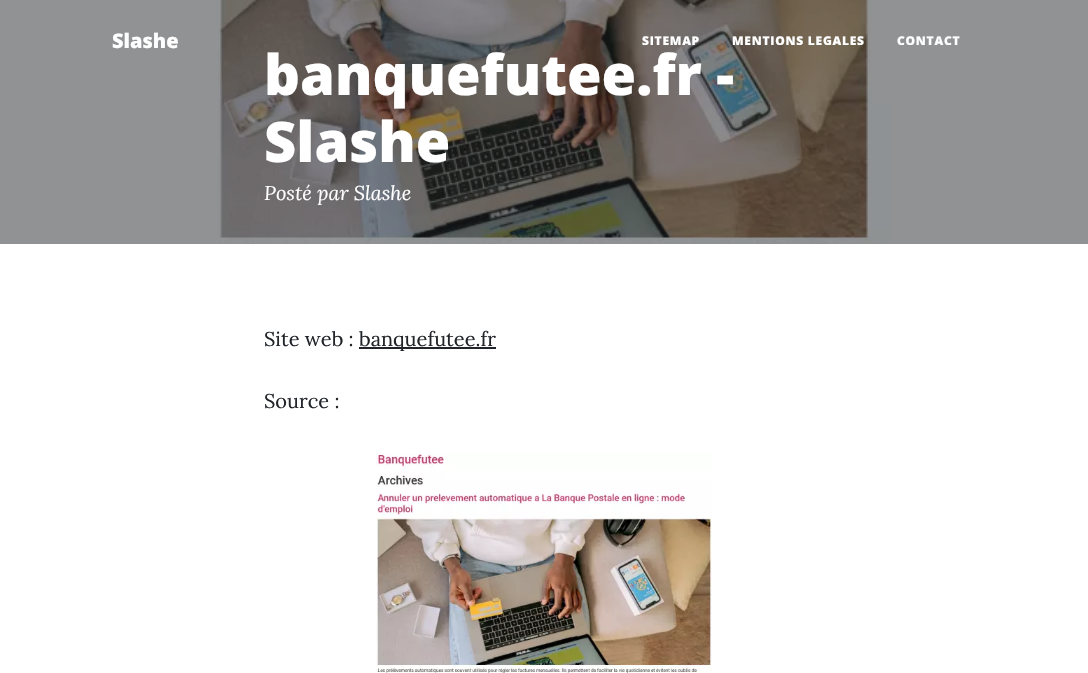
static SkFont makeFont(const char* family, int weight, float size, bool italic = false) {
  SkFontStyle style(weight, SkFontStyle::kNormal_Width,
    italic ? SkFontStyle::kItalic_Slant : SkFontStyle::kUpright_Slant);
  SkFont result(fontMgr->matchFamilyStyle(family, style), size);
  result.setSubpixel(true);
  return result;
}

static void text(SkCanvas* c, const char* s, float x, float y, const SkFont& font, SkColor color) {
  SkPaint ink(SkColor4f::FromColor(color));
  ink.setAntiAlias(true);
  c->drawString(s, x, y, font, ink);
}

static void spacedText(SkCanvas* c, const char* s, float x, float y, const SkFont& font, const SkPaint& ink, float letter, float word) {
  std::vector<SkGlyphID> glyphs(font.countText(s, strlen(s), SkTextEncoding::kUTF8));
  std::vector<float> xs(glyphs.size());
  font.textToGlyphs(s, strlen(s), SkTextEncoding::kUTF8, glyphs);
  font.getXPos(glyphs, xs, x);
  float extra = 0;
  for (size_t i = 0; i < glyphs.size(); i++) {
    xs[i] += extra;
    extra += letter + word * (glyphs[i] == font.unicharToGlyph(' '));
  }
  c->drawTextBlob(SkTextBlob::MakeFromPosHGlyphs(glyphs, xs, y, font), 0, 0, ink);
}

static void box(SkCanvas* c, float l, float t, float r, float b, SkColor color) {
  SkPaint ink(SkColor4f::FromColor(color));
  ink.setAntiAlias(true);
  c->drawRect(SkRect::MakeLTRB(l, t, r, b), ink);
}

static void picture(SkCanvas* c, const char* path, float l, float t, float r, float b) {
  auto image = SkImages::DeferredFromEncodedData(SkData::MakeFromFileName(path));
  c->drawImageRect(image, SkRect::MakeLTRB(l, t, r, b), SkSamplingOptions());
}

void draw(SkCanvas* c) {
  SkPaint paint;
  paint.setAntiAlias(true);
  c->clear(0xffffffff);
  picture(c, "img_01.png", 0, 0, 1088, 244);
  SkFont face1 = makeFont("Open Sans", 800, 20);
  text(c, "Slashe", 112, 48, face1, 0xffffffff);
  SkFont face2 = makeFont("Open Sans", 800, 12);
  paint.setColor(0xffffffff);
  spacedText(c, "SITEMAP", 642, 45, face2, paint, 0.75f, 0);
  spacedText(c, "MENTIONS LEGALES", 732, 45, face2, paint, 0.75f, 0);
  spacedText(c, "CONTACT", 897, 45, face2, paint, 0.75f, 0);
  SkFont face3 = makeFont("Open Sans", 800, 56);
  text(c, "banquefutee.fr -", 264, 95, face3, 0xffffffff);
  text(c, "Slashe", 264, 162, face3, 0xffffffff);
  SkFont face4 = makeFont("Lora", 400, 20, true);
  text(c, "Posté par Slashe", 264, 200, face4, 0xffffffff);
  SkFont face5 = makeFont("Lora", 400, 20);
  text(c, "Site web :", 264, 346, face5, 0xff212529);
  box(c, 359, 347, 496, 349, 0xff212529);
  text(c, "banquefutee.fr", 359, 346, face5, 0xff212529);
  text(c, "Source :", 264, 408, face5, 0xff212529);
  picture(c, "img_02.png", 375, 453, 713, 673);
}
